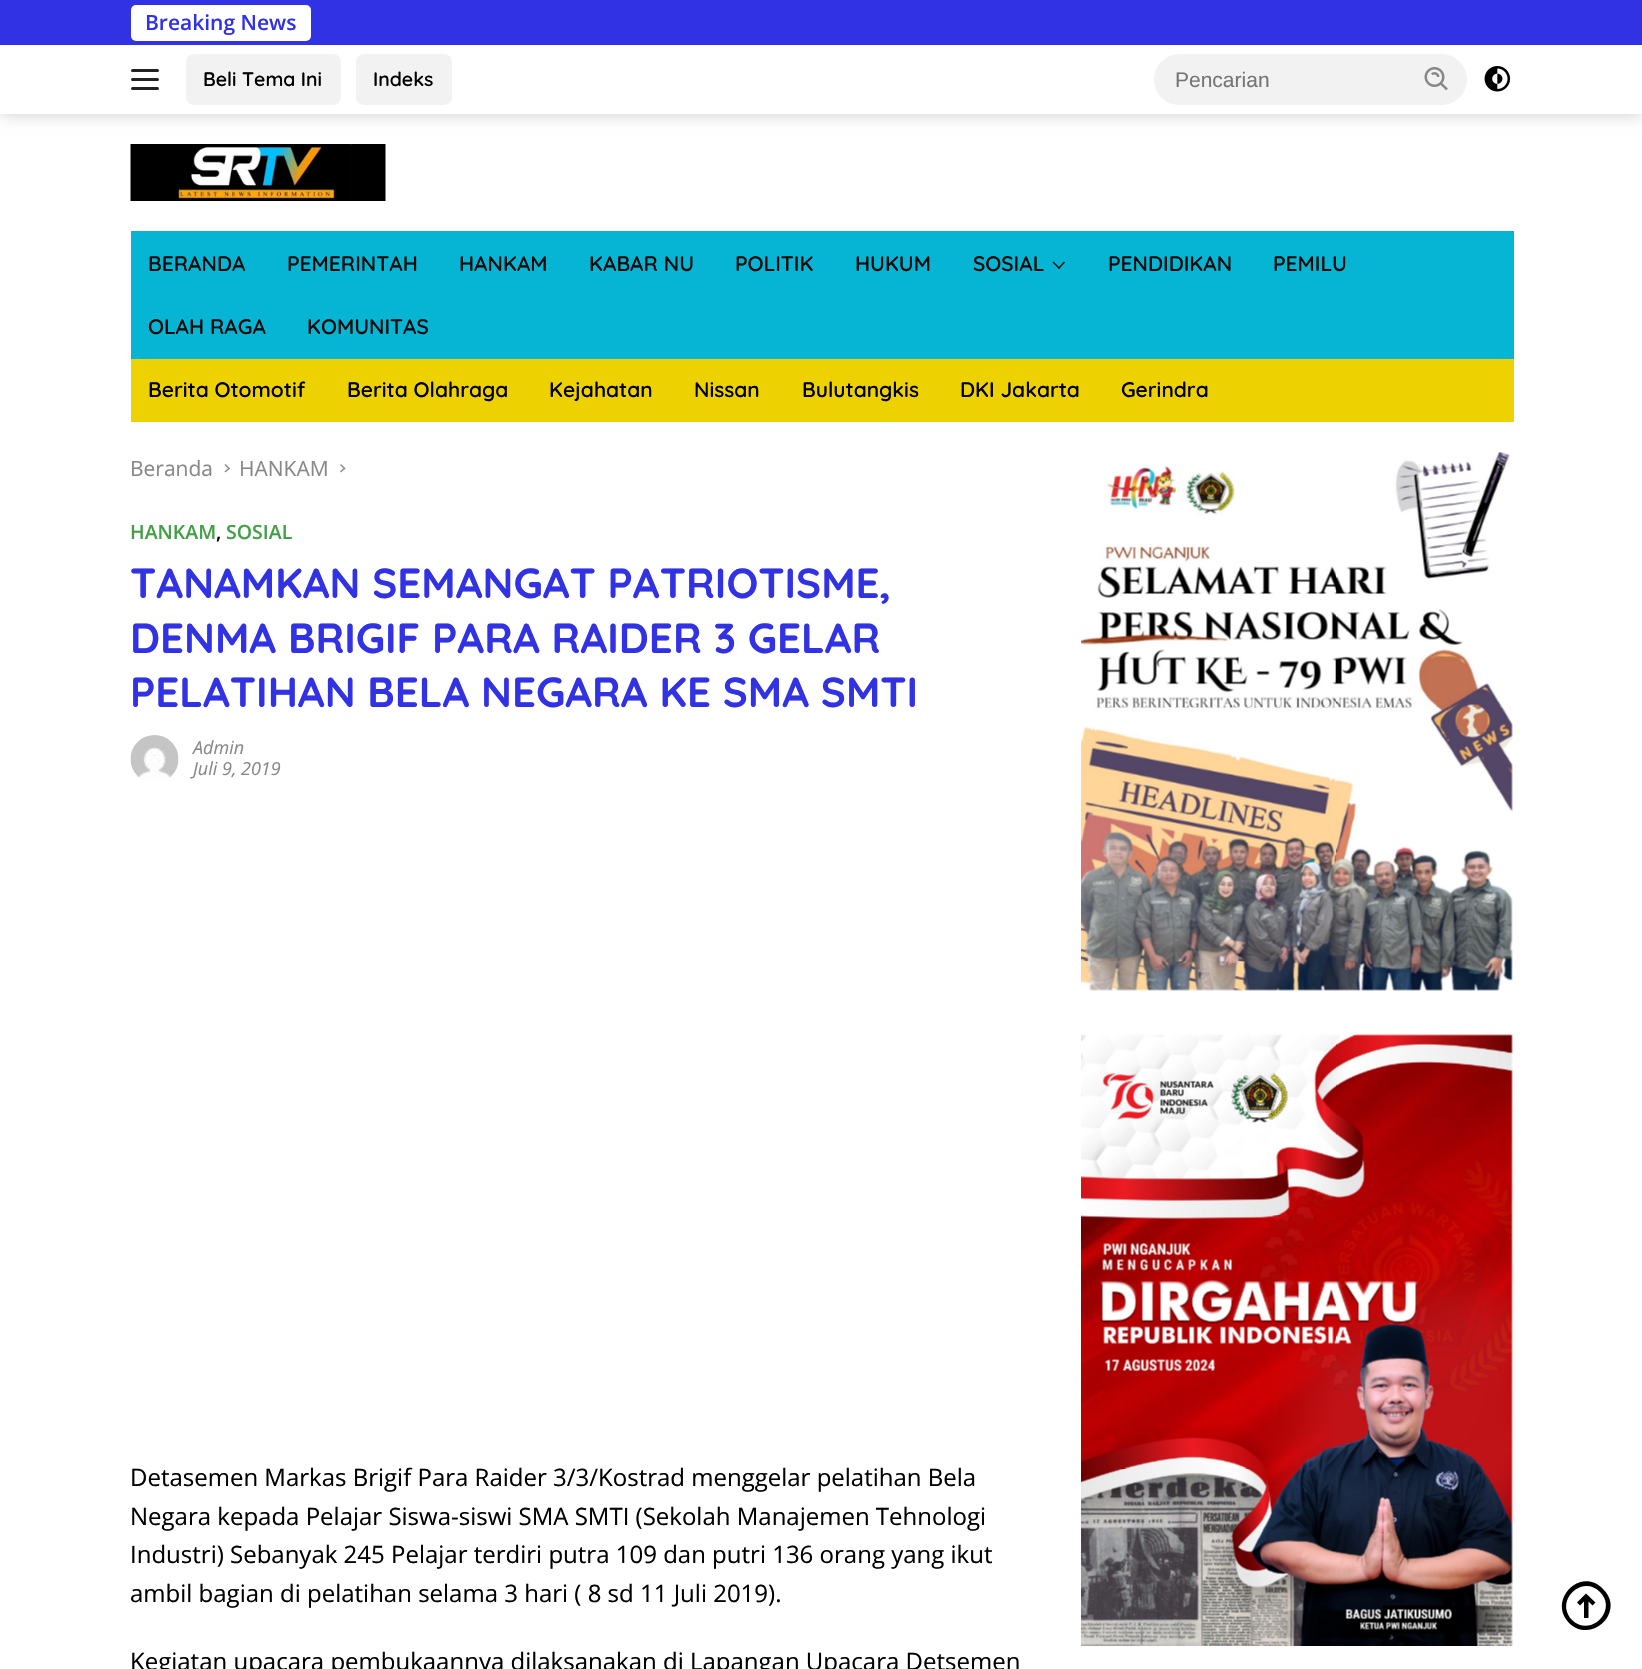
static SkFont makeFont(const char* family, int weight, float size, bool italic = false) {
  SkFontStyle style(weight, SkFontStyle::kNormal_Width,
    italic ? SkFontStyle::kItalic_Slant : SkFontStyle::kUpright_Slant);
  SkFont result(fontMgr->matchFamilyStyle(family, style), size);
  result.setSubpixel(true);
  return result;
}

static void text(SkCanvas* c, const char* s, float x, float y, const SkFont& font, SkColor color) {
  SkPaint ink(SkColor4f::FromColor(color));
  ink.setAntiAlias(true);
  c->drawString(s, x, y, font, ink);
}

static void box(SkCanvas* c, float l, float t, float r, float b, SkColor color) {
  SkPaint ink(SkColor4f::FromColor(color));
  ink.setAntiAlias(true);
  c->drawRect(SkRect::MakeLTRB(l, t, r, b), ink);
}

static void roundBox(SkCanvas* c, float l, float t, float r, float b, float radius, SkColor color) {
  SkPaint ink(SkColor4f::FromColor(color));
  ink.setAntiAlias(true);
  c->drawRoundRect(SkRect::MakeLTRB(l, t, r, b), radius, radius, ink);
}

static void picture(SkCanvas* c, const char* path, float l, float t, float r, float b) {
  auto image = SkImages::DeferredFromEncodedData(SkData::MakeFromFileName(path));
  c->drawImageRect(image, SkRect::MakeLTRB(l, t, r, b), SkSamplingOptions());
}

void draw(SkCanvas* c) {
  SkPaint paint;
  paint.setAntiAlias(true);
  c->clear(0xffffffff);
  paint.setColor(0x33000000);
  paint.setMaskFilter(SkMaskFilter::MakeBlur(kNormal_SkBlurStyle, 7.5f));
  c->drawRect(SkRect::MakeLTRB(0, 0, 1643, 114), paint);
  paint.setMaskFilter(nullptr);
  box(c, 0, 45, 1642, 114, 0xffffffff);
  box(c, 0, 0, 1642, 45, 0xff3232e5);
  roundBox(c, 131, 5, 311, 41, 5, 0xffffffff);
  SkFont face1 = makeFont("Open Sans", 600, 21);
  text(c, "Breaking News", 145, 30, face1, 0xff3232e5);
  roundBox(c, 131, 69, 159, 72, 1.5f, 0xff222222);
  roundBox(c, 131, 78, 159, 81, 1.5f, 0xff222222);
  roundBox(c, 131, 87, 159, 90, 1.5f, 0xff222222);
  roundBox(c, 186, 54, 341, 105, 8, 0xfff2f2f2);
  SkFont face2 = makeFont("Quicksand", 600, 19.5f);
  text(c, "Beli Tema Ini", 203, 86, face2, 0xff000000);
  roundBox(c, 356, 54, 452, 105, 8, 0xfff2f2f2);
  text(c, "Indeks", 373, 86, face2, 0xff000000);
  roundBox(c, 1154, 54, 1467, 105, 25.5f, 0xfff2f2f2);
  SkFont face3 = makeFont("Liberation Sans", 400, 21);
  text(c, "Pencarian", 1175, 87, face3, 0xff757575);
  picture(c, "img_01.png", 1424, 67, 1448, 91);
  picture(c, "img_02.png", 1484, 66, 1511, 92);
  picture(c, "img_03.png", 130, 144, 386, 201);
  box(c, 131, 359, 1514, 422, 0xffedd100);
  box(c, 131, 231, 1514, 359, 0xff06b4d3);
  SkFont face4 = makeFont("Quicksand", 600, 21);
  text(c, "BERANDA", 148, 271, face4, 0xff0a0a0a);
  text(c, "PEMERINTAH", 287, 271, face4, 0xff0a0a0a);
  text(c, "HANKAM", 459, 271, face4, 0xff0a0a0a);
  text(c, "KABAR NU", 589, 271, face4, 0xff0a0a0a);
  text(c, "POLITIK", 735, 271, face4, 0xff0a0a0a);
  text(c, "HUKUM", 855, 271, face4, 0xff0a0a0a);
  text(c, "SOSIAL", 973, 271, face4, 0xff0a0a0a);
  paint.setColor(0xff0a0a0a);
  c->drawPath(SkPathBuilder().moveTo(1064, 261.5f).lineTo(1065, 262.5f).lineTo(1059, 269).lineTo(1058, 268).close().detach(), paint);
  c->drawPath(SkPathBuilder().moveTo(1053.5f, 261.5f).lineTo(1060, 268).lineTo(1059, 269).lineTo(1052.5f, 262.5f).close().detach(), paint);
  text(c, "PENDIDIKAN", 1108, 271, face4, 0xff0a0a0a);
  text(c, "PEMILU", 1273, 271, face4, 0xff0a0a0a);
  text(c, "OLAH RAGA", 148, 334, face4, 0xff0a0a0a);
  text(c, "KOMUNITAS", 307, 334, face4, 0xff0a0a0a);
  text(c, "Berita Otomotif", 148, 397, face4, 0xff000000);
  text(c, "Berita Olahraga", 347, 397, face4, 0xff000000);
  text(c, "Kejahatan", 549, 397, face4, 0xff000000);
  text(c, "Nissan", 694, 397, face4, 0xff000000);
  text(c, "Bulutangkis", 802, 397, face4, 0xff000000);
  text(c, "DKI Jakarta", 960, 397, face4, 0xff000000);
  text(c, "Gerindra", 1121, 397, face4, 0xff000000);
  SkFont face5 = makeFont("Open Sans", 400, 21);
  text(c, "Beranda", 130, 476, face5, 0xff888888);
  paint.setColor(0xff888888);
  c->drawPath(SkPathBuilder().moveTo(224.5f, 465).lineTo(225.5f, 464).lineTo(230, 468.5f).lineTo(229, 469.5f).close().detach(), paint);
  c->drawPath(SkPathBuilder().moveTo(224.5f, 471.5f).lineTo(229, 467.5f).lineTo(230, 468.5f).lineTo(225.5f, 472.5f).close().detach(), paint);
  text(c, "HANKAM", 239, 476, face5, 0xff888888);
  c->drawPath(SkPathBuilder().moveTo(340, 465).lineTo(341, 464).lineTo(345.5f, 468.5f).lineTo(344.5f, 469.5f).close().detach(), paint);
  c->drawPath(SkPathBuilder().moveTo(340, 471.5f).lineTo(344.5f, 467.5f).lineTo(345.5f, 468.5f).lineTo(341, 472.5f).close().detach(), paint);
  SkFont face6 = makeFont("Open Sans", 600, 19.5f);
  text(c, "HANKAM", 130, 539, face6, 0xff43a047);
  text(c, ",", 216, 539, face6, 0xff000000);
  text(c, "SOSIAL", 226, 539, face6, 0xff43a047);
  SkFont face7 = makeFont("Quicksand", 700, 42);
  text(c, "TANAMKAN SEMANGAT PATRIOTISME,", 130, 598, face7, 0xff3232e5);
  text(c, "DENMA BRIGIF PARA RAIDER 3 GELAR", 130, 653, face7, 0xff3232e5);
  text(c, "PELATIHAN BELA NEGARA KE SMA SMTI", 130, 707, face7, 0xff3232e5);
  picture(c, "img_04.png", 130, 735, 179, 780);
  SkFont face8 = makeFont("Open Sans", 400, 18, true);
  text(c, "Admin", 193, 754, face8, 0xff888888);
  text(c, "Juli 9, 2019", 193, 775, face8, 0xff888888);
  SkFont face9 = makeFont("Open Sans", 400, 24);
  text(c, "Detasemen Markas Brigif Para Raider 3/3/Kostrad menggelar pelatihan Bela", 130, 1486, face9, 0xff000000);
  text(c, "Negara kepada Pelajar Siswa-siswi SMA SMTI (Sekolah Manajemen Tehnologi", 130, 1525, face9, 0xff000000);
  text(c, "Industri) Sebanyak 245 Pelajar terdiri putra 109 dan putri 136 orang yang ikut", 130, 1563, face9, 0xff000000);
  text(c, "ambil bagian di pelatihan selama 3 hari ( 8 sd 11 Juli 2019).", 130, 1602, face9, 0xff000000);
  text(c, "Kegiatan upacara pembukaannya dilaksanakan di Lapangan Upacara Detsemen", 130, 1670, face9, 0xff000000);
  picture(c, "img_05.png", 1081, 452, 1513, 991);
  picture(c, "img_06.png", 1081, 1034, 1513, 1646);
  paint.setColor(0xff000000);
  c->drawPath(SkPathBuilder().moveTo(1592.5f, 1605.5f).lineTo(1595.5f, 1602.5f).lineTo(1586, 1593.5f).lineTo(1577, 1602.5f).lineTo(1580, 1605.5f).lineTo(1584, 1601.5f).lineTo(1584, 1618).lineTo(1588.5f, 1618).lineTo(1588.5f, 1601.5f).close().detach(), paint);
  c->drawPath(SkPathBuilder(SkPathFillType::kEvenOdd).moveTo(1603, 1589).cubicTo(1581, 1566, 1547, 1600, 1569, 1623).cubicTo(1592, 1645, 1626, 1611, 1603, 1589).close().moveTo(1600, 1592).cubicTo(1582, 1574, 1554, 1601, 1572, 1620).cubicTo(1591, 1638, 1618, 1610, 1600, 1592).close().detach(), paint);
}
